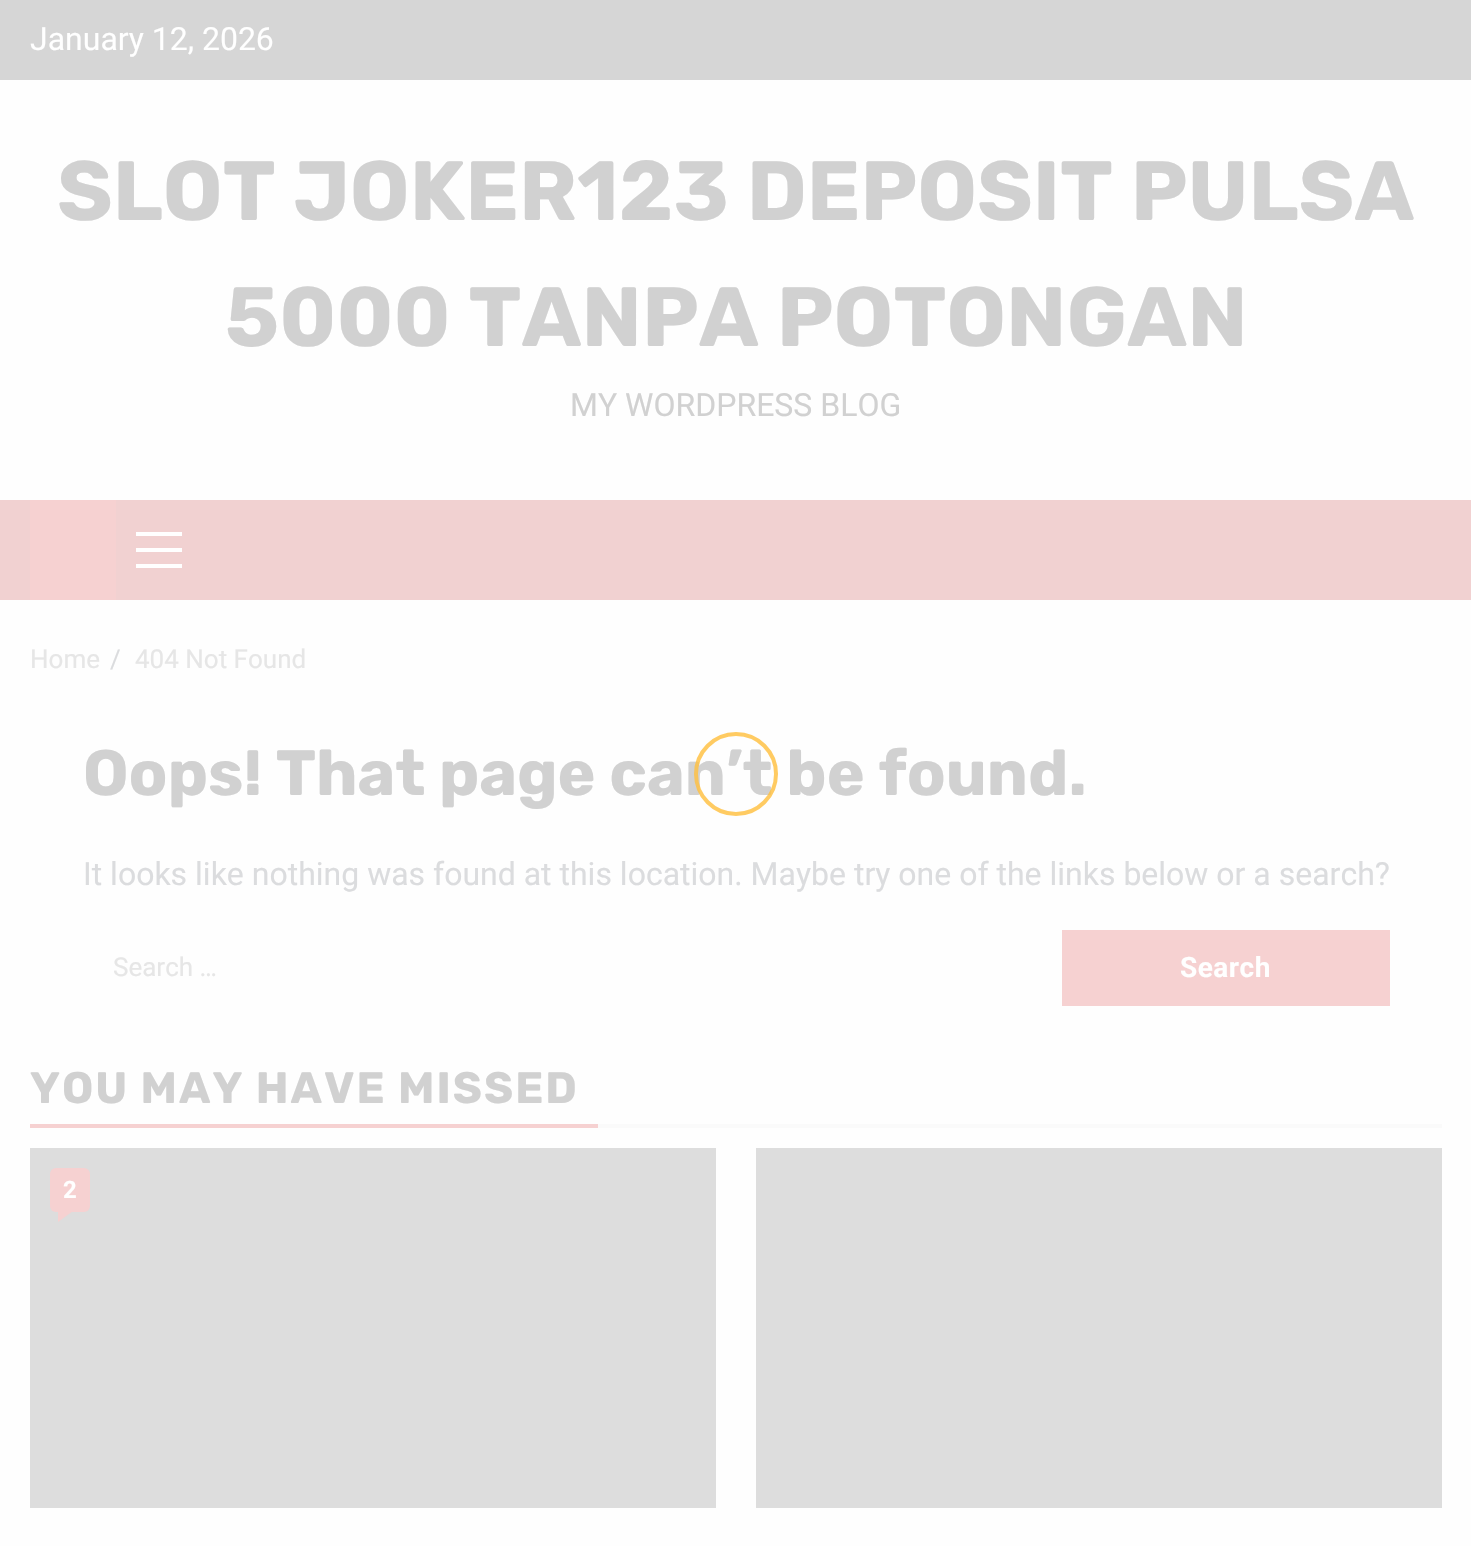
static SkFont makeFont(const char* family, int weight, float size, bool italic = false) {
  SkFontStyle style(weight, SkFontStyle::kNormal_Width,
    italic ? SkFontStyle::kItalic_Slant : SkFontStyle::kUpright_Slant);
  SkFont result(fontMgr->matchFamilyStyle(family, style), size);
  result.setSubpixel(true);
  return result;
}

static void text(SkCanvas* c, const char* s, float x, float y, const SkFont& font, SkColor color) {
  SkPaint ink(SkColor4f::FromColor(color));
  ink.setAntiAlias(true);
  c->drawString(s, x, y, font, ink);
}

static void spacedText(SkCanvas* c, const char* s, float x, float y, const SkFont& font, const SkPaint& ink, float letter, float word) {
  std::vector<SkGlyphID> glyphs(font.countText(s, strlen(s), SkTextEncoding::kUTF8));
  std::vector<float> xs(glyphs.size());
  font.textToGlyphs(s, strlen(s), SkTextEncoding::kUTF8, glyphs);
  font.getXPos(glyphs, xs, x);
  float extra = 0;
  for (size_t i = 0; i < glyphs.size(); i++) {
    xs[i] += extra;
    extra += letter + word * (glyphs[i] == font.unicharToGlyph(' '));
  }
  c->drawTextBlob(SkTextBlob::MakeFromPosHGlyphs(glyphs, xs, y, font), 0, 0, ink);
}

static void box(SkCanvas* c, float l, float t, float r, float b, SkColor color) {
  SkPaint ink(SkColor4f::FromColor(color));
  ink.setAntiAlias(true);
  c->drawRect(SkRect::MakeLTRB(l, t, r, b), ink);
}

static void roundBox(SkCanvas* c, float l, float t, float r, float b, float radius, SkColor color) {
  SkPaint ink(SkColor4f::FromColor(color));
  ink.setAntiAlias(true);
  c->drawRoundRect(SkRect::MakeLTRB(l, t, r, b), radius, radius, ink);
}

void draw(SkCanvas* c) {
  SkPaint paint;
  paint.setAntiAlias(true);
  c->clear(0xfffefefe);
  box(c, 0, 0, 1471, 80, 0xffd6d6d6);
  SkFont face1 = makeFont("Roboto", 400, 32);
  text(c, "January 12, 2026", 30, 50, face1, 0xffffffff);
  SkFont face2 = makeFont("Rubik", 700, 84);
  text(c, "SLOT JOKER123 DEPOSIT PULSA", 57, 220, face2, 0xffd1d1d1);
  text(c, "5000 TANPA POTONGAN", 225, 346, face2, 0xffd1d1d1);
  text(c, "MY WORDPRESS BLOG", 570, 416, face1, 0xffd1d1d1);
  box(c, 0, 500, 1471, 600, 0xfff1d1d1);
  box(c, 30, 500, 116, 600, 0xfff6d1d1);
  box(c, 136, 548, 182, 552, 0xffffffff);
  box(c, 136, 532, 182, 536, 0xffffffff);
  box(c, 136, 564, 182, 568, 0xffffffff);
  SkFont face3 = makeFont("Roboto", 400, 26);
  text(c, "Home", 30, 668, face3, 0xffe6e6e6);
  text(c, "/", 110, 668, face3, 0xffdbdcde);
  text(c, "404 Not Found", 135, 668, face3, 0xffe6e6e6);
  SkFont face4 = makeFont("Rubik", 700, 64);
  text(c, "Oops! That page can’t be found.", 83, 795, face4, 0xffd1d1d1);
  text(c, "It looks like nothing was found at this location. Maybe try one of the links below or a search?", 83, 885, face1, 0xffdbdcde);
  text(c, "Search …", 113, 976, face3, 0xffe6e6e6);
  box(c, 1062, 930, 1390, 1006, 0xfff6d1d1);
  SkFont face5 = makeFont("Roboto", 700, 28);
  paint.setColor(0xffffffff);
  spacedText(c, "Search", 1180, 977, face5, paint, 0.5f, 0);
  box(c, 30, 1124, 598, 1128, 0xfff6d1d1);
  SkFont face6 = makeFont("Rubik", 700, 44);
  paint.setColor(0xffd1d1d1);
  spacedText(c, "YOU MAY HAVE MISSED", 30, 1103, face6, paint, 2, 0);
  box(c, 598, 1124, 1442, 1128, 0xfffafafa);
  box(c, 30, 1148, 716, 1508, 0xffdddddd);
  roundBox(c, 50, 1168, 90, 1212, 6, 0xfff6d1d1);
  SkFont face7 = makeFont("Roboto", 700, 24);
  text(c, "2", 63, 1198, face7, 0xffffffff);
  paint.setColor(0xfff6d1d1);
  c->drawPath(SkPathBuilder().moveTo(58, 1206).lineTo(80, 1206).lineTo(58, 1222).close().detach(), paint);
  box(c, 756, 1148, 1442, 1508, 0xffdddddd);
  paint.setStyle(SkPaint::kStroke_Style);
  paint.setStrokeWidth(4);
  paint.setColor(0xd1ffbf3f);
  c->drawCircle(736, 774, 40, paint);
}
